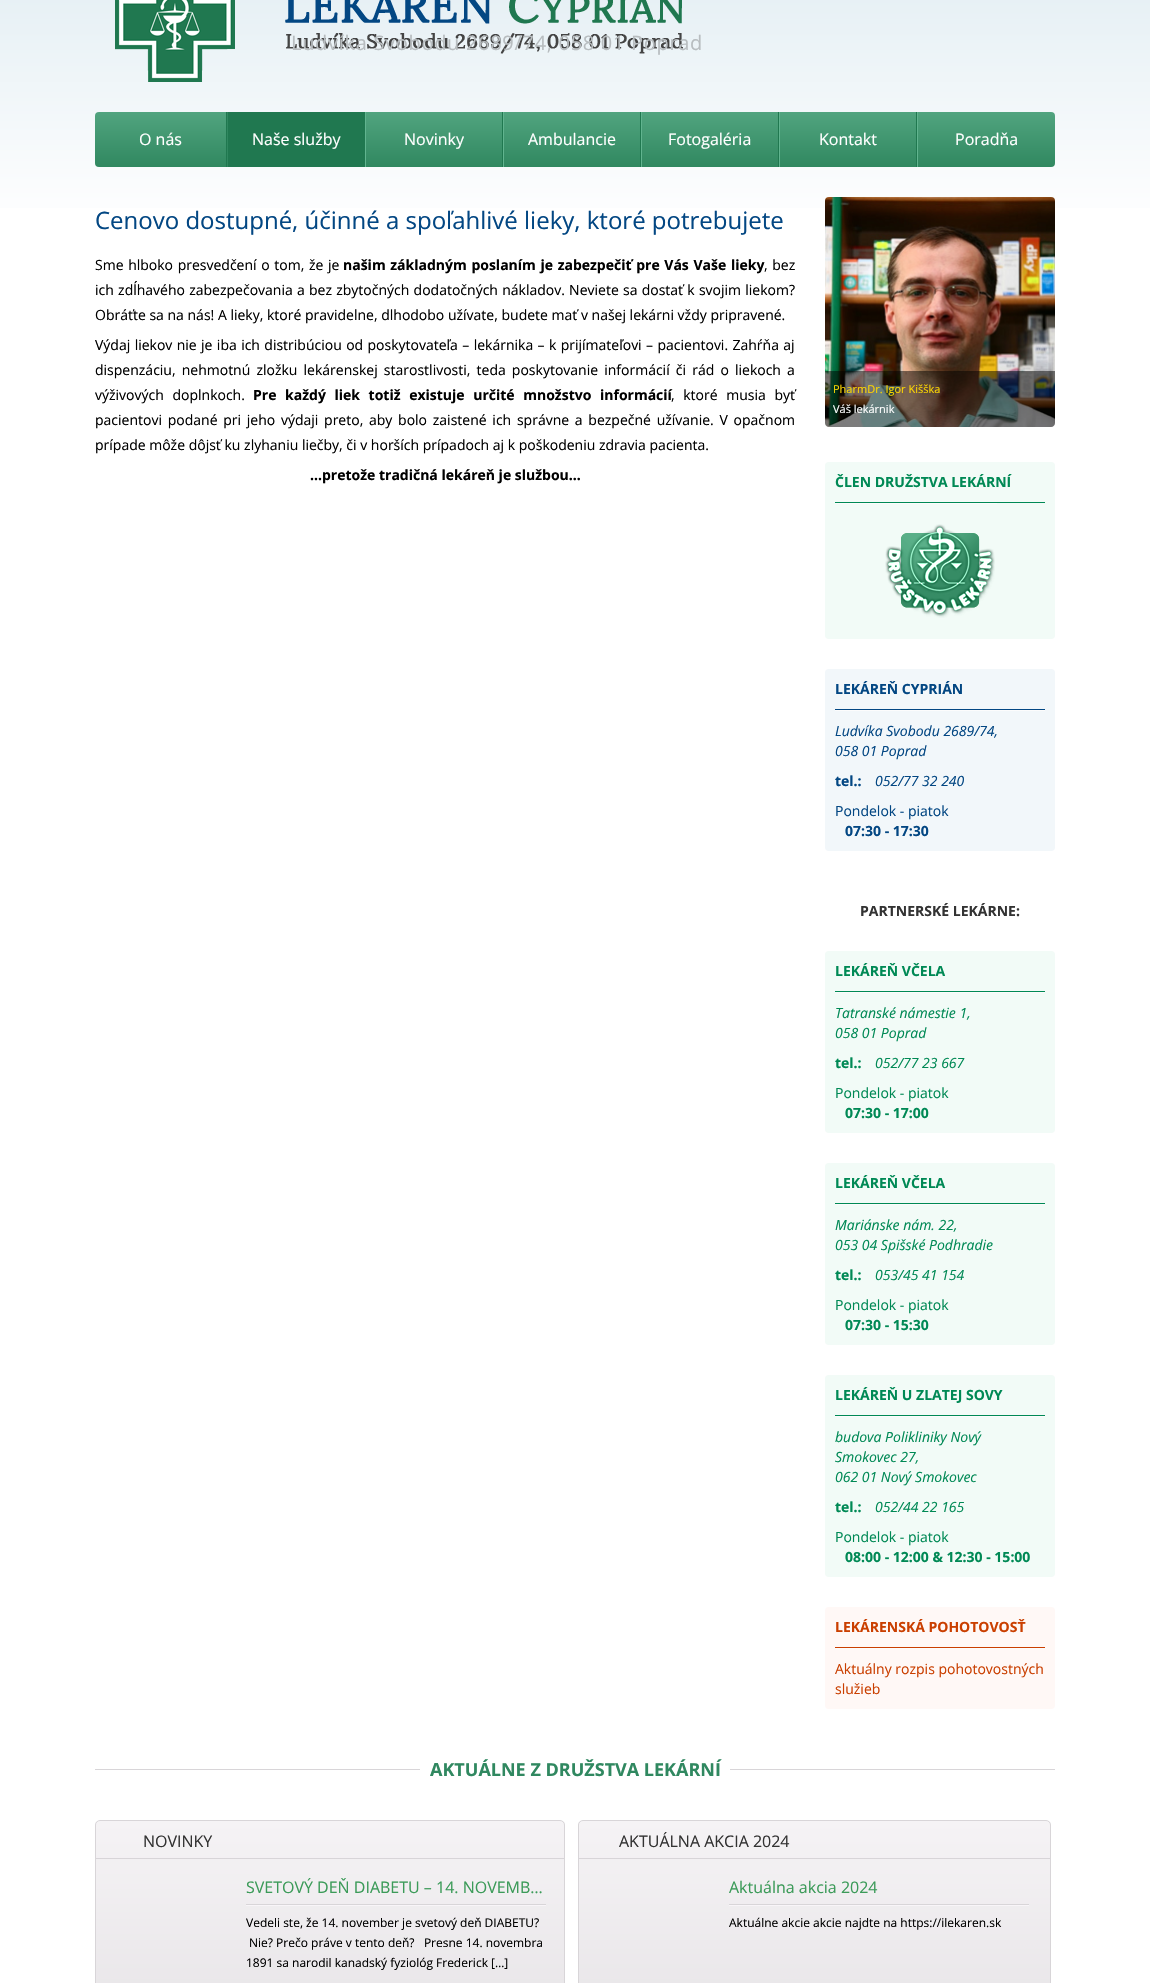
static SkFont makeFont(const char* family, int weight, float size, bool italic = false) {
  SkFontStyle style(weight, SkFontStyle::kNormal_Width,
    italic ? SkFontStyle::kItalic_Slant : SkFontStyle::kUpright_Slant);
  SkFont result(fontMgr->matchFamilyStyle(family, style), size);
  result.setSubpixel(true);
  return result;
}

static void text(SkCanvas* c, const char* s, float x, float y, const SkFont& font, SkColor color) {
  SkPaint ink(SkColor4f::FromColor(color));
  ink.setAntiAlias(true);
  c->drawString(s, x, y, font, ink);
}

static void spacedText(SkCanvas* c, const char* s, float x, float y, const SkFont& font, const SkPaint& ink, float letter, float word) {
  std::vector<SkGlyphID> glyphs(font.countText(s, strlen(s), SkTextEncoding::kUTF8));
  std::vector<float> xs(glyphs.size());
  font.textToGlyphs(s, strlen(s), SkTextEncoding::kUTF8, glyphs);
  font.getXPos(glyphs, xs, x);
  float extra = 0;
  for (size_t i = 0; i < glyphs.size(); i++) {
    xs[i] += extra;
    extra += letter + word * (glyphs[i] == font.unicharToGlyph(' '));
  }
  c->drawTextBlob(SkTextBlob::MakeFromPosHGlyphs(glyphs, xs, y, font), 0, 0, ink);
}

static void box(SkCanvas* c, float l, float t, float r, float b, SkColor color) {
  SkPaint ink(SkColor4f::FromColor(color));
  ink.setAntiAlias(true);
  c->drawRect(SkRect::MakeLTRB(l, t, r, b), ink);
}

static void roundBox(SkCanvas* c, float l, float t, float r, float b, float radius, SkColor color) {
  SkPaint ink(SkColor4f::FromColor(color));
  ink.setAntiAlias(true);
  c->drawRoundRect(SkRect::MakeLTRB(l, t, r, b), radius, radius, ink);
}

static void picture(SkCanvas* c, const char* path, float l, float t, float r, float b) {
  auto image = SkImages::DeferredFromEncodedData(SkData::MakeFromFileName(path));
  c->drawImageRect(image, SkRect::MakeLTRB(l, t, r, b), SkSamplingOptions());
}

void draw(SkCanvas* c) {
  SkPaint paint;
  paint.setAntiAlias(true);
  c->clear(0xffffffff);
  {
    const SkColor colors[] = {0xffffffff, 0xffe0ecf2};
    const float stops[] = {0, 1};
    const SkPoint ends[] = {{0, 232}, {0, -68}};
    paint.setShader(SkGradientShader::MakeLinear(ends, colors, stops, 2, SkTileMode::kClamp));
    paint.setAlpha(255);
  }
  c->drawRect(SkRect::MakeLTRB(0, 0, 1150, 208), paint);
  picture(c, "img_01.png", 115, 0, 235, 82);
  picture(c, "img_02.png", 285, 0, 683, 54);
  SkFont face1 = makeFont("Open Sans", 400, 20);
  paint.setShader(nullptr);
  paint.setColor(0xffb8bdc0);
  spacedText(c, "Ludvíka Svobodu 2689/74, 058 01 Poprad", 291, 50, face1, paint, 0.7f, 0);
  {
    const SkColor colors[] = {0xff308860, 0xff51a47f};
    const float stops[] = {0, 1};
    const SkPoint ends[] = {{95, 167}, {95, 112}};
    paint.setShader(SkGradientShader::MakeLinear(ends, colors, stops, 2, SkTileMode::kClamp));
    paint.setAlpha(255);
  }
  c->drawRoundRect(SkRect::MakeLTRB(95, 112, 1055, 167), 4, 4, paint);
  box(c, 226, 112, 227, 167, 0xff207850);
  SkFont face2 = makeFont("Open Sans", 400, 16);
  text(c, "O nás", 139, 145, face2, 0xffffffff);
  box(c, 228, 112, 365, 167, 0xff207850);
  box(c, 227, 112, 228, 167, 0xff308860);
  text(c, "Naše služby", 252, 145, face2, 0xffffffff);
  box(c, 502, 112, 503, 167, 0xff207850);
  box(c, 365, 112, 366, 167, 0xff61b48f);
  text(c, "Novinky", 404, 145, face2, 0xffffffff);
  box(c, 640, 112, 641, 167, 0xff207850);
  box(c, 503, 112, 504, 167, 0xff61b48f);
  text(c, "Ambulancie", 528, 145, face2, 0xffffffff);
  box(c, 778, 112, 779, 167, 0xff207850);
  box(c, 641, 112, 642, 167, 0xff61b48f);
  text(c, "Fotogaléria", 668, 145, face2, 0xffffffff);
  box(c, 916, 112, 917, 167, 0xff207850);
  box(c, 779, 112, 780, 167, 0xff61b48f);
  text(c, "Kontakt", 819, 145, face2, 0xffffffff);
  box(c, 917, 112, 918, 167, 0xff61b48f);
  text(c, "Poradňa", 955, 145, face2, 0xffffffff);
  SkFont face3 = makeFont("Open Sans", 400, 24);
  text(c, "Cenovo dostupné, účinné a spoľahlivé lieky, ktoré potrebujete", 95, 229, face3, 0xff034783);
  SkFont face4 = makeFont("Open Sans", 400, 14);
  paint.setShader(nullptr);
  paint.setColor(0xff000000);
  spacedText(c, "Sme hlboko presvedčení o tom, že je", 95, 270, face4, paint, 0, 1);
  SkFont face5 = makeFont("Open Sans", 700, 14);
  spacedText(c, "našim základným poslaním je zabezpečiť pre Vás Vaše lieky", 343, 270, face5, paint, 0, 1);
  spacedText(c, ", bez", 764, 270, face4, paint, 0, 1);
  spacedText(c, "ich zdĺhavého zabezpečovania a bez zbytočných dodatočných nákladov. Neviete sa dostať k svojim liekom?", 95, 295, face4, paint, 0, 0.6f);
  text(c, "Obráťte sa na nás! A lieky, ktoré pravidelne, dlhodobo užívate, budete mať v našej lekárni vždy pripravené.", 95, 320, face4, 0xff000000);
  spacedText(c, "Výdaj liekov nie je iba ich distribúciou od poskytovateľa – lekárnika – k prijímateľovi – pacientovi. Zahŕňa aj", 95, 350, face4, paint, 0, 0.75f);
  spacedText(c, "dispenzáciu, nehmotnú zložku lekárenskej starostlivosti, teda poskytovanie informácií či rád o liekoch a", 95, 375, face4, paint, 0, 2.5f);
  spacedText(c, "výživových doplnkoch.", 95, 400, face4, paint, 0, 5);
  spacedText(c, "Pre každý liek totiž existuje určité množstvo informácií", 253, 400, face5, paint, 0, 5);
  spacedText(c, ", ktoré musia byť", 671, 400, face4, paint, 0, 5);
  spacedText(c, "pacientovi podané pri jeho výdaji preto, aby bolo zaistené ich správne a bezpečné užívanie. V opačnom", 95, 425, face4, paint, 0, 2.1f);
  text(c, "prípade môže dôjsť ku zlyhaniu liečby, či v horších prípadoch aj k poškodeniu zdravia pacienta.", 95, 450, face4, 0xff000000);
  text(c, "…pretože tradičná lekáreň je službou…", 310, 480, face5, 0xff000000);
  picture(c, "img_03.png", 825, 197, 1055, 427);
  paint.setColor(0x80000000);
  c->drawPath(SkPathBuilder().moveTo(825, 371).lineTo(1055, 371).lineTo(1055, 423).cubicTo(1055, 425, 1053, 427, 1051, 427).lineTo(829, 427).cubicTo(827, 427, 825, 425, 825, 423).close().detach(), paint);
  SkFont face6 = makeFont("Open Sans", 400, 11);
  text(c, "PharmDr. Igor Kišška", 833, 393, face6, 0xfffbd502);
  text(c, "Váš lekárnik", 833, 413, face6, 0xffffffff);
  roundBox(c, 825, 462, 1055, 639, 4, 0xfff2fbf7);
  box(c, 835, 502, 1045, 503, 0xff008955);
  text(c, "ČLEN DRUŽSTVA LEKÁRNÍ", 835, 487, face5, 0xff008955);
  box(c, 835, 503, 997, 504, 0xfffcfcfc);
  picture(c, "img_04.png", 885, 524, 995, 618);
  roundBox(c, 825, 669, 1055, 851, 4, 0xfff2f7fa);
  box(c, 835, 709, 1045, 710, 0xff034783);
  text(c, "LEKÁREŇ CYPRIÁN", 835, 694, face5, 0xff034783);
  box(c, 835, 710, 1045, 711, 0xfffcfcfc);
  SkFont face7 = makeFont("Open Sans", 400, 14, true);
  text(c, "Ludvíka Svobodu 2689/74,", 835, 736, face7, 0xff034783);
  text(c, "058 01 Poprad", 835, 756, face7, 0xff034783);
  text(c, "tel.:", 835, 786, face5, 0xff034783);
  text(c, "052/77 32 240", 875, 786, face7, 0xff034783);
  text(c, "Pondelok - piatok", 835, 816, face4, 0xff034783);
  text(c, "07:30 - 17:30", 845, 836, face5, 0xff034783);
  text(c, "PARTNERSKÉ LEKÁRNE:", 860, 916, face5, 0xff333333);
  roundBox(c, 825, 951, 1055, 1133, 4, 0xfff2fbf7);
  box(c, 835, 991, 1045, 992, 0xff008955);
  text(c, "LEKÁREŇ VČELA", 835, 976, face5, 0xff008955);
  box(c, 835, 992, 1045, 993, 0xfffcfcfc);
  text(c, "Tatranské námestie 1,", 835, 1018, face7, 0xff008955);
  text(c, "058 01 Poprad", 835, 1038, face7, 0xff008955);
  text(c, "tel.:", 835, 1068, face5, 0xff008955);
  text(c, "052/77 23 667", 875, 1068, face7, 0xff008955);
  text(c, "Pondelok - piatok", 835, 1098, face4, 0xff008955);
  text(c, "07:30 - 17:00", 845, 1118, face5, 0xff008955);
  roundBox(c, 825, 1163, 1055, 1345, 4, 0xfff2fbf7);
  box(c, 835, 1203, 1045, 1204, 0xff008955);
  text(c, "LEKÁREŇ VČELA", 835, 1188, face5, 0xff008955);
  box(c, 835, 1204, 1045, 1205, 0xfffcfcfc);
  text(c, "Mariánske nám. 22,", 835, 1230, face7, 0xff008955);
  text(c, "053 04 Spišské Podhradie", 835, 1250, face7, 0xff008955);
  text(c, "tel.:", 835, 1280, face5, 0xff008955);
  text(c, "053/45 41 154", 875, 1280, face7, 0xff008955);
  text(c, "Pondelok - piatok", 835, 1310, face4, 0xff008955);
  text(c, "07:30 - 15:30", 845, 1330, face5, 0xff008955);
  roundBox(c, 825, 1375, 1055, 1577, 4, 0xfff2fbf7);
  box(c, 835, 1415, 1045, 1416, 0xff008955);
  text(c, "LEKÁREŇ U ZLATEJ SOVY", 835, 1400, face5, 0xff008955);
  box(c, 835, 1416, 1045, 1417, 0xfffcfcfc);
  text(c, "budova Polikliniky Nový", 835, 1442, face7, 0xff008955);
  text(c, "Smokovec 27,", 835, 1462, face7, 0xff008955);
  text(c, "062 01 Nový Smokovec", 835, 1482, face7, 0xff008955);
  text(c, "tel.:", 835, 1512, face5, 0xff008955);
  text(c, "052/44 22 165", 875, 1512, face7, 0xff008955);
  text(c, "Pondelok - piatok", 835, 1542, face4, 0xff008955);
  text(c, "08:00 - 12:00 & 12:30 - 15:00", 845, 1562, face5, 0xff008955);
  roundBox(c, 825, 1607, 1055, 1709, 4, 0xfffff8f6);
  box(c, 835, 1647, 1045, 1648, 0xffca3f00);
  text(c, "LEKÁRENSKÁ POHOTOVOSŤ", 835, 1632, face5, 0xffca3f00);
  box(c, 835, 1648, 1045, 1649, 0xfffcfcfc);
  text(c, "Aktuálny rozpis pohotovostných", 835, 1674, face4, 0xffca3f00);
  text(c, "služieb", 835, 1694, face4, 0xffca3f00);
  box(c, 95, 1769, 1055, 1770, 0xffd8d5d8);
  box(c, 420, 1769, 730, 1770, 0xffffffff);
  SkFont face8 = makeFont("Open Sans", 700, 18);
  text(c, "AKTUÁLNE Z DRUŽSTVA LEKÁRNÍ", 430, 1776, face8, 0xff308860);
  c->save();
  c->clipPath(SkPathBuilder().moveTo(100, 1820).lineTo(560, 1820).cubicTo(563, 1820, 565, 1822, 565, 1825).lineTo(565, 2013).cubicTo(565, 2016, 563, 2018, 560, 2018).lineTo(100, 2018).cubicTo(97, 2018, 95, 2016, 95, 2013).lineTo(95, 1825).cubicTo(95, 1822, 97, 1820, 100, 1820).close().detach(), true);
  {
    const SkColor colors[] = {0xffe8e5e8, 0xfff5f3f5};
    const float stops[] = {0, 1};
    const SkPoint ends[] = {{96, 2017}, {96, 1821}};
    paint.setShader(SkGradientShader::MakeLinear(ends, colors, stops, 2, SkTileMode::kClamp));
    paint.setAlpha(255);
  }
  c->drawRect(SkRect::MakeLTRB(95, 1821, 565, 1983), paint);
  c->restore();
  paint.setStyle(SkPaint::kStroke_Style);
  paint.setStrokeWidth(1);
  paint.setShader(nullptr);
  paint.setColor(0xffd8d5d8);
  c->drawRoundRect(SkRect::MakeLTRB(95.5f, 1820.5f, 564.5f, 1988.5f), 4.5f, 4.5f, paint);
  box(c, 96, 1858, 564, 1859, 0xffd8d5d8);
  text(c, "NOVINKY", 143, 1847, face2, 0xff333333);
  box(c, 246, 1904, 546, 1905, 0xffd8d5d8);
  text(c, "SVETOVÝ DEŇ DIABETU – 14. NOVEMB…", 246, 1893, face2, 0xff3c9b59);
  box(c, 246, 1905, 546, 1906, 0xfff8f5f8);
  SkFont face9 = makeFont("Open Sans", 400, 12);
  text(c, "Vedeli ste, že 14. november je svetový deň DIABETU?", 246, 1927, face9, 0xff000000);
  text(c, "Nie? Prečo práve v tento deň?   Presne 14. novembra", 249, 1947, face9, 0xff000000);
  text(c, "1891 sa narodil kanadský fyziológ Frederick […]", 246, 1967, face9, 0xff000000);
  c->save();
  c->clipPath(SkPathBuilder().moveTo(583, 1820).lineTo(1046, 1820).cubicTo(1049, 1820, 1051, 1822, 1051, 1825).lineTo(1051, 2013).cubicTo(1051, 2016, 1049, 2018, 1046, 2018).lineTo(583, 2018).cubicTo(580, 2018, 578, 2016, 578, 2013).lineTo(578, 1825).cubicTo(578, 1822, 580, 1820, 583, 1820).close().detach(), true);
  paint.setStyle(SkPaint::kFill_Style);
  {
    const SkColor colors[] = {0xffe8e5e8, 0xfff5f3f5};
    const float stops[] = {0, 1};
    const SkPoint ends[] = {{579, 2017}, {579, 1821}};
    paint.setShader(SkGradientShader::MakeLinear(ends, colors, stops, 2, SkTileMode::kClamp));
    paint.setAlpha(255);
  }
  c->drawRect(SkRect::MakeLTRB(578, 1821, 1051, 1983), paint);
  c->restore();
  paint.setStyle(SkPaint::kStroke_Style);
  paint.setShader(nullptr);
  paint.setColor(0xffd8d5d8);
  c->drawRoundRect(SkRect::MakeLTRB(578.5f, 1820.5f, 1050.5f, 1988.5f), 4.5f, 4.5f, paint);
  box(c, 579, 1858, 1050, 1859, 0xffd8d5d8);
  text(c, "AKTUÁLNA AKCIA 2024", 619, 1847, face2, 0xff333333);
  box(c, 729, 1904, 1029, 1905, 0xffd8d5d8);
  text(c, "Aktuálna akcia 2024", 729, 1893, face2, 0xff3c9b59);
  box(c, 729, 1905, 1029, 1906, 0xfff8f5f8);
  text(c, "Aktuálne akcie akcie najdte na https://ilekaren.sk", 729, 1927, face9, 0xff000000);
}
